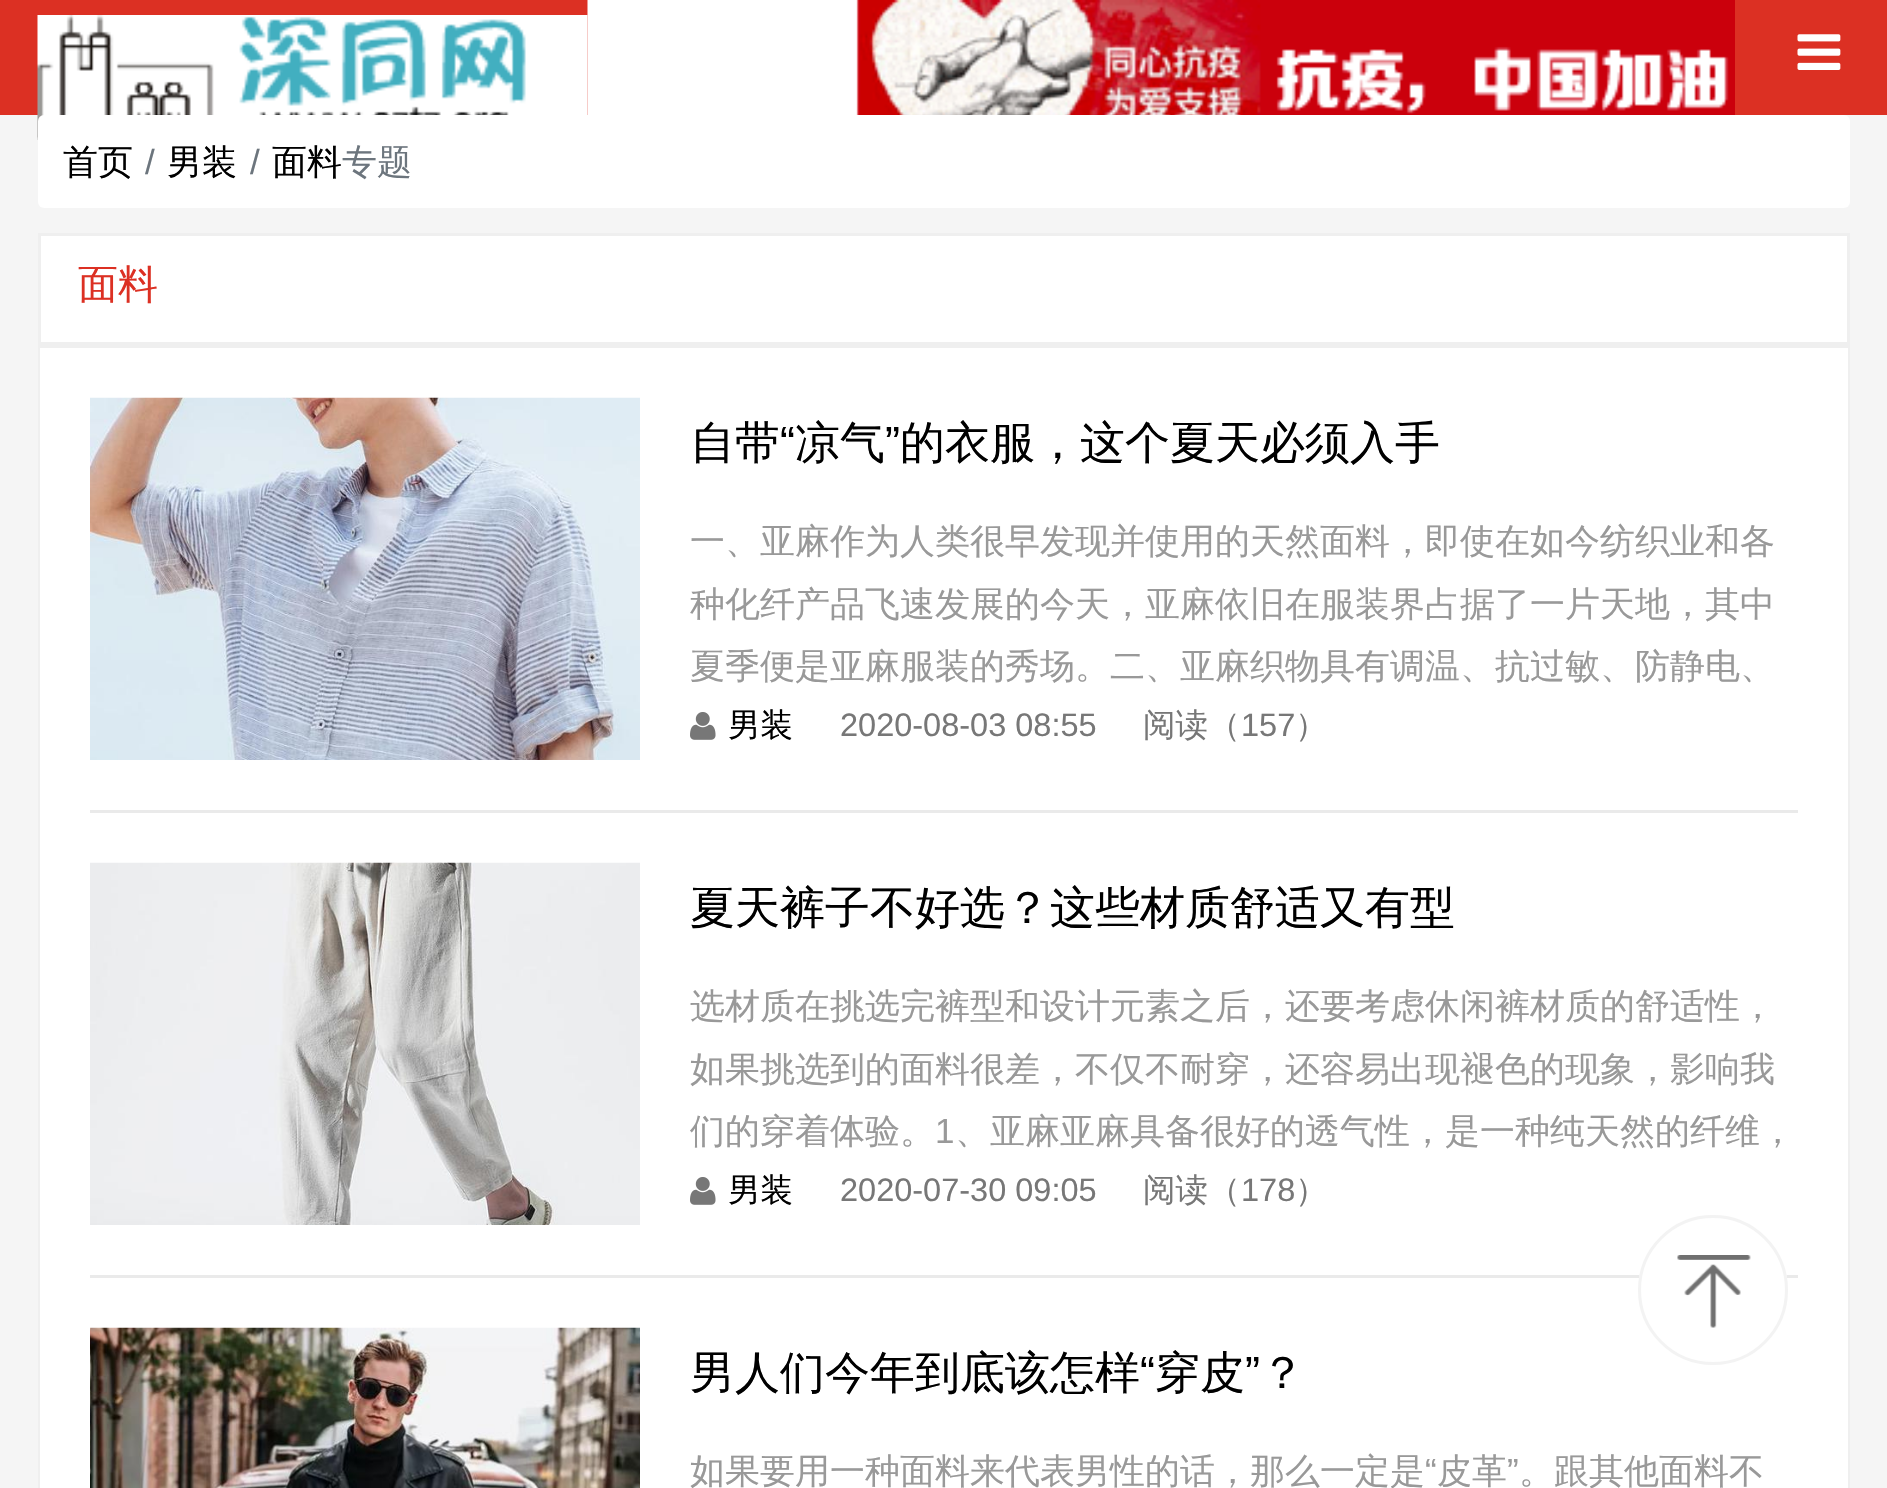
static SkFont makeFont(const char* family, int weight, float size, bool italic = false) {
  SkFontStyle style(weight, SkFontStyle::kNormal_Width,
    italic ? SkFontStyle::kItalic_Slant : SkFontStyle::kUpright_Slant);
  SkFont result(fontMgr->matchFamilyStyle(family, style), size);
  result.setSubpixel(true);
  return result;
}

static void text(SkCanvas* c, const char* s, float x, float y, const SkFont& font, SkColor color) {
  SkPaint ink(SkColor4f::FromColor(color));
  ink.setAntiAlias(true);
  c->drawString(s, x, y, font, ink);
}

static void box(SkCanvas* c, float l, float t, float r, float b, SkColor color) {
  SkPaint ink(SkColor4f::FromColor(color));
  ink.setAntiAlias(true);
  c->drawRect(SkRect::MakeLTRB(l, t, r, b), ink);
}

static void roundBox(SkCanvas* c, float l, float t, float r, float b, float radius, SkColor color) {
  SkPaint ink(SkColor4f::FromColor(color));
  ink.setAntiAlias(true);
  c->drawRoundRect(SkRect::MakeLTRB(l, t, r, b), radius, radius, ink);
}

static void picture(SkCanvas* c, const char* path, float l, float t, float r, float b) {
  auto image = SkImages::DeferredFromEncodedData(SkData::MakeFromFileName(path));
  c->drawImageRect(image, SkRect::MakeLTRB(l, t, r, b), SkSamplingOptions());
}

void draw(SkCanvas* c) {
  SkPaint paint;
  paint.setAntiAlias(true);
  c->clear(0xfff5f5f5);
  box(c, 0, 0, 1887, 115, 0xffdc3023);
  picture(c, "img_01.png", 37, 15, 588, 140);
  picture(c, "img_02.png", 587, 0, 1735, 115);
  picture(c, "img_03.png", 1797, 34, 1841, 70);
  roundBox(c, 38, 115, 1850, 208, 6, 0xffffffff);
  SkFont face1 = makeFont("WenQuanYi Zen Hei", 500, 35);
  text(c, "首页", 63, 174, face1, 0xff000000);
  SkFont face2 = makeFont("Liberation Sans", 400, 35);
  text(c, "/", 145, 174, face2, 0xff6c757d);
  text(c, "男装", 167, 174, face1, 0xff000000);
  text(c, "/", 250, 174, face2, 0xff6c757d);
  text(c, "面料", 272, 174, face1, 0xff000000);
  text(c, "专题", 342, 174, face1, 0xff6c757d);
  paint.setColor(0xffffffff);
  c->drawRect(SkRect::MakeLTRB(39.5f, 234.5f, 1848.5f, 343.5f), paint);
  paint.setStyle(SkPaint::kStroke_Style);
  paint.setStrokeWidth(3);
  paint.setColor(0xffefefef);
  c->drawRect(SkRect::MakeLTRB(39.5f, 234.5f, 1848.5f, 343.5f), paint);
  SkFont face3 = makeFont("WenQuanYi Zen Hei", 500, 40);
  text(c, "面料", 78, 298, face3, 0xffdc3023);
  c->drawRect(SkRect::MakeLTRB(39.5f, 346.5f, 1848.5f, 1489.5f), paint);
  box(c, 40, 348, 1848, 1488, 0xffffffff);
  box(c, 90, 810, 1798, 813, 0xffeaeaea);
  picture(c, "img_04.png", 90, 397, 640, 760);
  SkFont face4 = makeFont("WenQuanYi Zen Hei", 500, 45);
  text(c, "自带", 690, 458, face4, 0xff000000);
  SkFont face5 = makeFont("Liberation Sans", 400, 45);
  text(c, "“", 780, 458, face5, 0xff000000);
  text(c, "凉气", 795, 458, face4, 0xff000000);
  text(c, "”", 885, 458, face5, 0xff000000);
  text(c, "的衣服，这个夏天必须入手", 900, 458, face4, 0xff000000);
  text(c, "一、亚麻作为人类很早发现并使用的天然面料，即使在如今纺织业和各", 690, 553, face1, 0xff999999);
  text(c, "种化纤产品飞速发展的今天，亚麻依旧在服装界占据了一片天地，其中", 690, 616, face1, 0xff999999);
  text(c, "夏季便是亚麻服装的秀场。二、亚麻织物具有调温、抗过敏、防静电、", 690, 678, face1, 0xff999999);
  picture(c, "img_05.png", 690, 712, 716, 740);
  SkFont face6 = makeFont("WenQuanYi Zen Hei", 500, 32.5f);
  text(c, "男装", 728, 736, face6, 0xff000000);
  SkFont face7 = makeFont("Liberation Sans", 400, 32.5f);
  text(c, "2020-08-03 08:55", 840, 736, face7, 0xff777777);
  text(c, "阅读（", 1143, 736, face6, 0xff777777);
  text(c, "157", 1241, 736, face7, 0xff777777);
  text(c, "）", 1295, 736, face6, 0xff777777);
  box(c, 90, 1275, 1798, 1278, 0xffeaeaea);
  picture(c, "img_06.png", 90, 862, 640, 1225);
  text(c, "夏天裤子不好选？这些材质舒适又有型", 690, 923, face4, 0xff000000);
  text(c, "选材质在挑选完裤型和设计元素之后，还要考虑休闲裤材质的舒适性，", 690, 1018, face1, 0xff999999);
  text(c, "如果挑选到的面料很差，不仅不耐穿，还容易出现褪色的现象，影响我", 690, 1081, face1, 0xff999999);
  text(c, "们的穿着体验。", 690, 1143, face1, 0xff999999);
  text(c, "1", 935, 1143, face2, 0xff999999);
  text(c, "、亚麻亚麻具备很好的透气性，是一种纯天然的纤维，", 955, 1143, face1, 0xff999999);
  picture(c, "img_05.png", 690, 1177, 716, 1205);
  text(c, "男装", 728, 1201, face6, 0xff000000);
  text(c, "2020-07-30 09:05", 840, 1201, face7, 0xff777777);
  text(c, "阅读（", 1143, 1201, face6, 0xff777777);
  text(c, "178", 1241, 1201, face7, 0xff777777);
  text(c, "）", 1295, 1201, face6, 0xff777777);
  picture(c, "img_07.png", 90, 1327, 640, 1488);
  text(c, "男人们今年到底该怎样", 690, 1388, face4, 0xff000000);
  text(c, "“", 1140, 1388, face5, 0xff000000);
  text(c, "穿皮", 1155, 1388, face4, 0xff000000);
  text(c, "”", 1245, 1388, face5, 0xff000000);
  text(c, "？", 1260, 1388, face4, 0xff000000);
  text(c, "如果要用一种面料来代表男性的话，那么一定是", 690, 1483, face1, 0xff999999);
  text(c, "“", 1425, 1483, face2, 0xff999999);
  text(c, "皮革", 1437, 1483, face1, 0xff999999);
  text(c, "”", 1507, 1483, face2, 0xff999999);
  text(c, "。跟其他面料不", 1519, 1483, face1, 0xff999999);
  paint.setStyle(SkPaint::kFill_Style);
  paint.setColor(0xffffffff);
  c->drawCircle(1713, 1290, 75, paint);
  picture(c, "img_08.png", 1677, 1255, 1751, 1328);
  paint.setStyle(SkPaint::kStroke_Style);
  paint.setColor(0xfff3f3f3);
  c->drawCircle(1713, 1290, 73.5f, paint);
}
